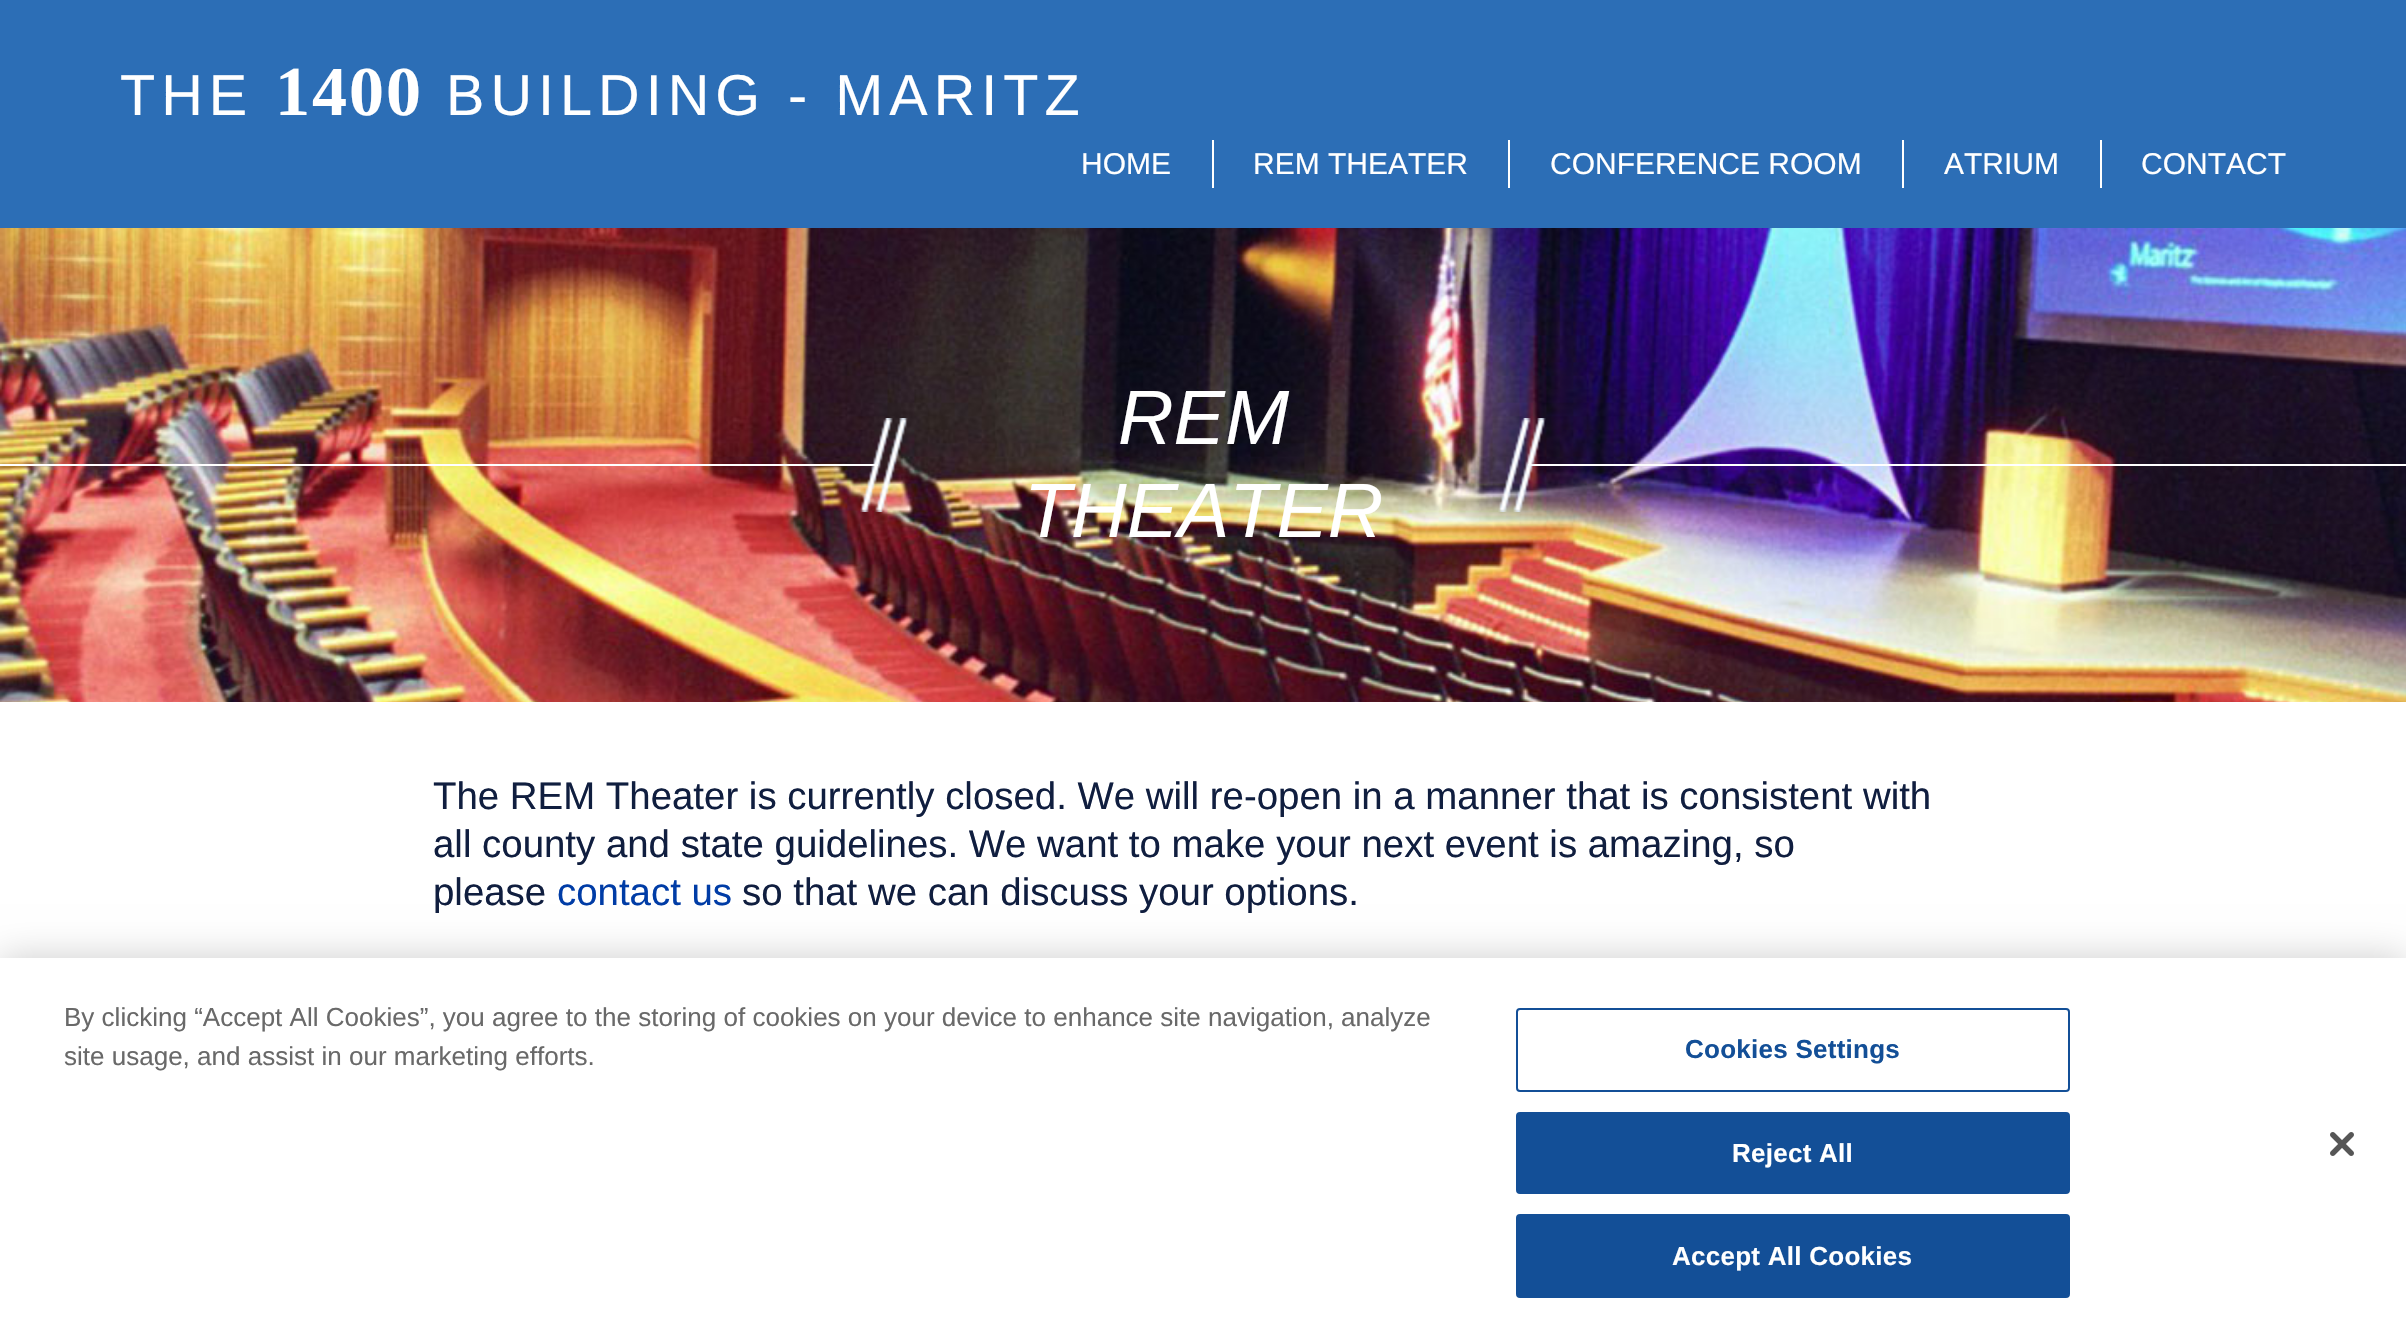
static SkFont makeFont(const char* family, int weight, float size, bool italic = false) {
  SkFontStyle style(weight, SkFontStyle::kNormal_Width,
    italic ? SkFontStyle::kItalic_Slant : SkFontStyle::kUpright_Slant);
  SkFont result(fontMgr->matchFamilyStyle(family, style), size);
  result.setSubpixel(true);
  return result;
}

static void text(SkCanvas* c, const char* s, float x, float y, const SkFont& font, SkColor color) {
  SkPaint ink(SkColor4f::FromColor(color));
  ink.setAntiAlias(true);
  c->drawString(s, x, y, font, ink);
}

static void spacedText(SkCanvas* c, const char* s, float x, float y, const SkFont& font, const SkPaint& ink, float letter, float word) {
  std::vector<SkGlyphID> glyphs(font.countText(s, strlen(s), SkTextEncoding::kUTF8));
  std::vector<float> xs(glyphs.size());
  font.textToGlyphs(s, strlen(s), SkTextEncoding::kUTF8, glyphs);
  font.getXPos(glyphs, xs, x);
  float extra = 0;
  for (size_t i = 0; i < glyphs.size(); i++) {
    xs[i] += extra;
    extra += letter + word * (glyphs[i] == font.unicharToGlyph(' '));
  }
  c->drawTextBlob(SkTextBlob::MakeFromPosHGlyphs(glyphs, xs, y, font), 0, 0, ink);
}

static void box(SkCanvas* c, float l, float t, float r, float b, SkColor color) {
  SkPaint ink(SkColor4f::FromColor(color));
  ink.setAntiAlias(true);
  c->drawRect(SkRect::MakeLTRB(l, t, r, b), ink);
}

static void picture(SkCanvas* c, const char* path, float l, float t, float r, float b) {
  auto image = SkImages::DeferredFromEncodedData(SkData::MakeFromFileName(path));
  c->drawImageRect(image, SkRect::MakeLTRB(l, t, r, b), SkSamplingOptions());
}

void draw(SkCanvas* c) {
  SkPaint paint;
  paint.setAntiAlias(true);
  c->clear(0xffffffff);
  box(c, 0, 0, 2406, 228, 0xff2c6eb6);
  SkFont face1 = makeFont("Liberation Sans", 400, 57.6f);
  paint.setColor(0xffffffff);
  spacedText(c, "THE", 120, 115, face1, paint, 6, 0);
  SkFont face2 = makeFont("Liberation Serif", 700, 70);
  spacedText(c, "1400", 275, 115, face2, paint, 2, 0);
  spacedText(c, "BUILDING - MARITZ", 446, 115, face1, paint, 6, 0);
  box(c, 1212, 140, 1214, 188, 0xffffffff);
  SkFont face3 = makeFont("Liberation Sans", 400, 30);
  text(c, "HOME", 1081, 174, face3, 0xffffffff);
  box(c, 1508, 140, 1510, 188, 0xffffffff);
  text(c, "REM THEATER", 1253, 174, face3, 0xffffffff);
  box(c, 1902, 140, 1904, 188, 0xffffffff);
  text(c, "CONFERENCE ROOM", 1550, 174, face3, 0xffffffff);
  box(c, 2100, 140, 2102, 188, 0xffffffff);
  text(c, "ATRIUM", 1944, 174, face3, 0xffffffff);
  text(c, "CONTACT", 2141, 174, face3, 0xffffffff);
  picture(c, "img_01.png", 0, 228, 2406, 702);
  box(c, 0, 464, 878, 466, 0xffffffff);
  picture(c, "img_02.png", 860, 418, 908, 512);
  SkFont face4 = makeFont("Liberation Sans", 400, 77, true);
  text(c, "REM", 1118, 444, face4, 0xffffffff);
  text(c, "THEATER", 1024, 537, face4, 0xffffffff);
  box(c, 1528, 464, 2406, 466, 0xffffffff);
  picture(c, "img_03.png", 1498, 418, 1546, 512);
  SkFont face5 = makeFont("Liberation Sans", 400, 38.4f);
  text(c, "The REM Theater is currently closed. We will re-open in a manner that is consistent with", 433, 809, face5, 0xff101e3f);
  text(c, "all county and state guidelines. We want to make your next event is amazing, so", 433, 857, face5, 0xff101e3f);
  text(c, "please", 433, 905, face5, 0xff101e3f);
  text(c, "contact us", 557, 905, face5, 0xff003ca6);
  text(c, "so that we can discuss your options.", 742, 905, face5, 0xff101e3f);
  paint.setColor(0x33000000);
  paint.setMaskFilter(SkMaskFilter::MakeBlur(kNormal_SkBlurStyle, 18));
  c->drawRect(SkRect::MakeLTRB(0, 958, 2406, 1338), paint);
  paint.setMaskFilter(nullptr);
  box(c, 0, 958, 2406, 1337, 0xffffffff);
  SkFont face6 = makeFont("Liberation Sans", 400, 26.02f);
  text(c, "By clicking “Accept All Cookies”, you agree to the storing of cookies on your device to enhance site navigation, analyze", 64, 1026, face6, 0xff696969);
  text(c, "site usage, and assist in our marketing efforts.", 64, 1065, face6, 0xff696969);
  paint.setStyle(SkPaint::kStroke_Style);
  paint.setStrokeWidth(2);
  paint.setColor(0xff134f97);
  c->drawRoundRect(SkRect::MakeLTRB(1517, 1009, 2069, 1091), 3, 3, paint);
  SkFont face7 = makeFont("Liberation Sans", 700, 26.02f);
  paint.setStyle(SkPaint::kFill_Style);
  spacedText(c, "Cookies Settings", 1685, 1058, face7, paint, 0.25f, 0);
  c->drawRoundRect(SkRect::MakeLTRB(1517, 1113, 2069, 1193), 3, 3, paint);
  paint.setStyle(SkPaint::kStroke_Style);
  c->drawRoundRect(SkRect::MakeLTRB(1517, 1113, 2069, 1193), 3, 3, paint);
  paint.setStyle(SkPaint::kFill_Style);
  paint.setColor(0xffffffff);
  spacedText(c, "Reject All", 1732, 1162, face7, paint, 0.25f, 0);
  paint.setColor(0xff134f97);
  c->drawRoundRect(SkRect::MakeLTRB(1517, 1215, 2069, 1297), 3, 3, paint);
  paint.setStyle(SkPaint::kStroke_Style);
  c->drawRoundRect(SkRect::MakeLTRB(1517, 1215, 2069, 1297), 3, 3, paint);
  paint.setStyle(SkPaint::kFill_Style);
  paint.setColor(0xffffffff);
  spacedText(c, "Accept All Cookies", 1672, 1265, face7, paint, 0.25f, 0);
  picture(c, "img_04.png", 2330, 1132, 2354, 1156);
}
